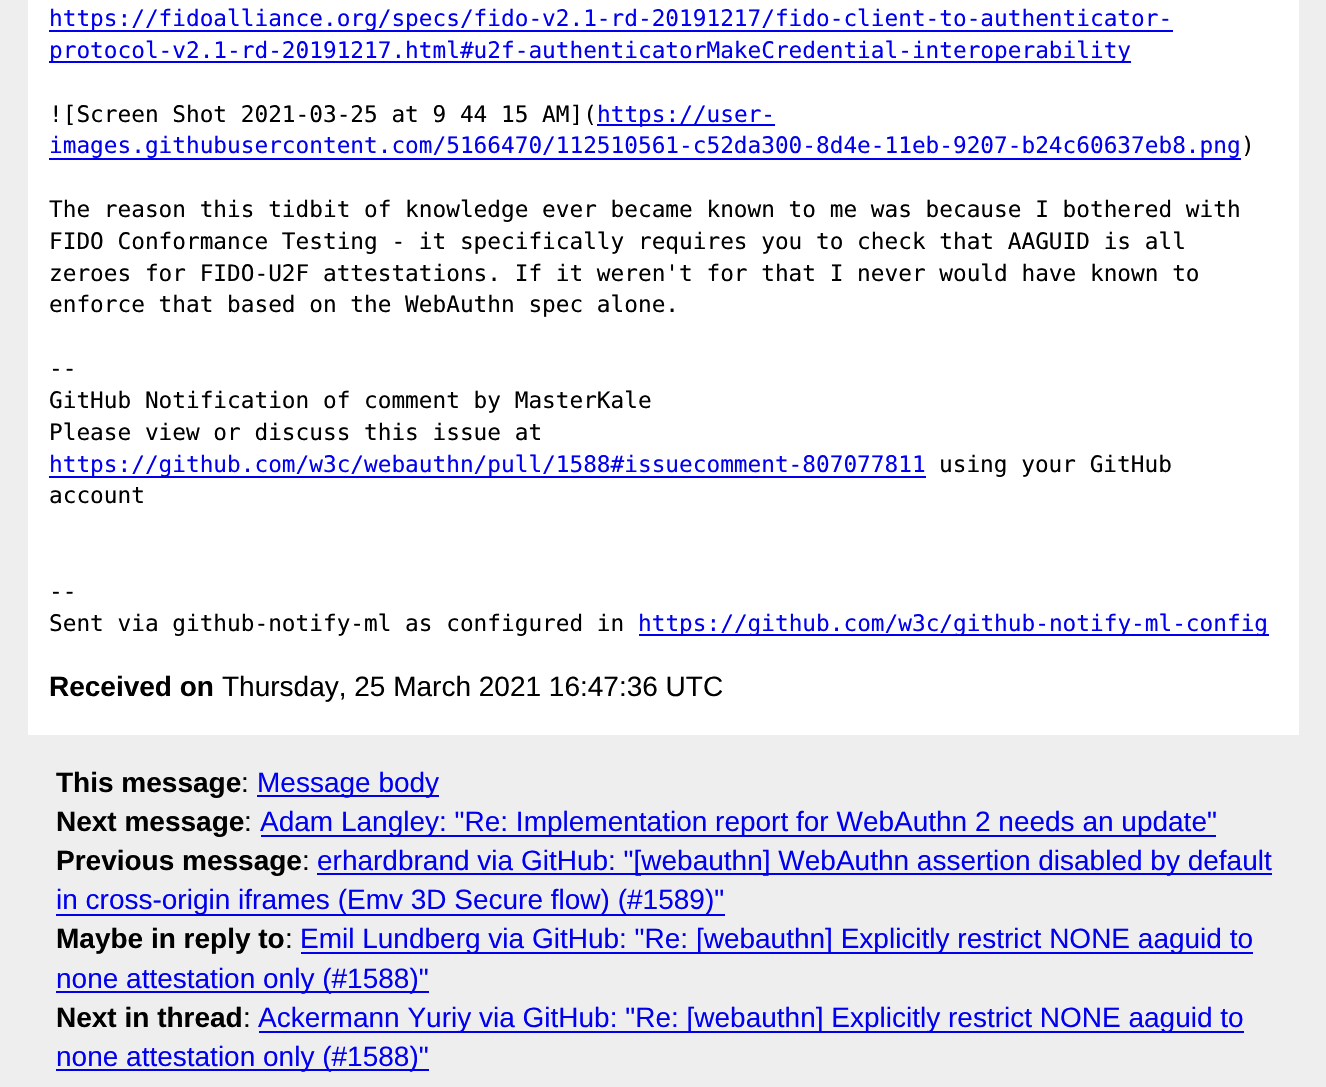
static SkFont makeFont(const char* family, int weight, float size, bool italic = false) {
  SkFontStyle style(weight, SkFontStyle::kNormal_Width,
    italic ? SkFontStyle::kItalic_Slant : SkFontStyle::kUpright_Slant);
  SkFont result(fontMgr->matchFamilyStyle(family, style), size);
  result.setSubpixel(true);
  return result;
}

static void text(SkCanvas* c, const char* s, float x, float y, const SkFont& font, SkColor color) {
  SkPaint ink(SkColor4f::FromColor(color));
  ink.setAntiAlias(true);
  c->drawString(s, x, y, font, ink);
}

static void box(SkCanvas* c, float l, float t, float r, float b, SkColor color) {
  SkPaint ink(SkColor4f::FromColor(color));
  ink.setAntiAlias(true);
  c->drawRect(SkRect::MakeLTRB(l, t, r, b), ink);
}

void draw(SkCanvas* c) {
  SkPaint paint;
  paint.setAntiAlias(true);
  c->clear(0xffeeeeee);
  box(c, 28, 0, 1299, 735, 0xffffffff);
  box(c, 49, 30, 1173, 32, 0xff0000ee);
  SkFont face1 = makeFont("DejaVu Sans Mono", 400, 22.75f);
  text(c, "https://fidoalliance.org/specs/fido-v2.1-rd-20191217/fido-client-to-authenticator-", 49, 26, face1, 0xff0000ee);
  box(c, 49, 61, 1131, 63, 0xff0000ee);
  text(c, "protocol-v2.1-rd-20191217.html#u2f-authenticatorMakeCredential-interoperability", 49, 58, face1, 0xff0000ee);
  text(c, "![Screen Shot 2021-03-25 at 9 44 15 AM](", 49, 122, face1, 0xff000000);
  box(c, 597, 124, 775, 126, 0xff0000ee);
  text(c, "https://user-", 597, 122, face1, 0xff0000ee);
  text(c, "images.githubusercontent.com/5166470/112510561-c52da300-8d4e-11eb-9207-b24c60637eb8.png", 49, 153, face1, 0xff0000ee);
  box(c, 49, 158, 1241, 160, 0xff0000ee);
  text(c, ")", 1241, 153, face1, 0xff000000);
  text(c, "The reason this tidbit of knowledge ever became known to me was because I bothered with", 49, 217, face1, 0xff000000);
  text(c, "FIDO Conformance Testing - it specifically requires you to check that AAGUID is all", 49, 249, face1, 0xff000000);
  text(c, "zeroes for FIDO-U2F attestations. If it weren't for that I never would have known to", 49, 281, face1, 0xff000000);
  text(c, "enforce that based on the WebAuthn spec alone.", 49, 312, face1, 0xff000000);
  text(c, "--", 49, 376, face1, 0xff000000);
  text(c, "GitHub Notification of comment by MasterKale", 49, 408, face1, 0xff000000);
  text(c, "Please view or discuss this issue at", 49, 440, face1, 0xff000000);
  box(c, 49, 476, 926, 478, 0xff0000ee);
  text(c, "https://github.com/w3c/webauthn/pull/1588#issuecomment-807077811", 49, 472, face1, 0xff0000ee);
  text(c, "using your GitHub", 939, 472, face1, 0xff000000);
  text(c, "account", 49, 503, face1, 0xff000000);
  text(c, "--", 49, 599, face1, 0xff000000);
  text(c, "Sent via github-notify-ml as configured in", 49, 631, face1, 0xff000000);
  box(c, 639, 634, 1269, 636, 0xff0000ee);
  text(c, "https://github.com/w3c/github-notify-ml-config", 638, 631, face1, 0xff0000ee);
  SkFont face2 = makeFont("Liberation Sans", 700, 28);
  text(c, "Received on", 49, 696, face2, 0xff000000);
  SkFont face3 = makeFont("Liberation Sans", 400, 28);
  text(c, "Thursday, 25 March 2021 16:47:36 UTC", 222, 696, face3, 0xff000000);
  text(c, "This message", 56, 792, face2, 0xff000000);
  text(c, ":", 241, 792, face3, 0xff000000);
  box(c, 257, 795, 439, 797, 0xff0000ee);
  text(c, "Message body", 257, 792, face3, 0xff0000ee);
  text(c, "Next message", 56, 831, face2, 0xff000000);
  text(c, ":", 244, 831, face3, 0xff000000);
  box(c, 261, 835, 1216, 837, 0xff0000ee);
  text(c, "Adam Langley: \"Re: Implementation report for WebAuthn 2 needs an update\"", 260, 831, face3, 0xff0000ee);
  text(c, "Previous message", 56, 870, face2, 0xff000000);
  text(c, ":", 302, 870, face3, 0xff000000);
  box(c, 317, 873, 1272, 875, 0xff0000ee);
  text(c, "erhardbrand via GitHub: \"[webauthn] WebAuthn assertion disabled by default", 317, 870, face3, 0xff0000ee);
  box(c, 56, 914, 725, 916, 0xff0000ee);
  text(c, "in cross-origin iframes (Emv 3D Secure flow) (#1589)\"", 56, 909, face3, 0xff0000ee);
  text(c, "Maybe in reply to", 56, 948, face2, 0xff000000);
  text(c, ":", 285, 948, face3, 0xff000000);
  box(c, 301, 952, 1253, 954, 0xff0000ee);
  text(c, "Emil Lundberg via GitHub: \"Re: [webauthn] Explicitly restrict NONE aaguid to", 300, 948, face3, 0xff0000ee);
  box(c, 56, 991, 429, 993, 0xff0000ee);
  text(c, "none attestation only (#1588)\"", 56, 988, face3, 0xff0000ee);
  text(c, "Next in thread", 56, 1027, face2, 0xff000000);
  text(c, ":", 243, 1027, face3, 0xff000000);
  box(c, 259, 1031, 1244, 1033, 0xff0000ee);
  text(c, "Ackermann Yuriy via GitHub: \"Re: [webauthn] Explicitly restrict NONE aaguid to", 258, 1027, face3, 0xff0000ee);
  box(c, 56, 1069, 429, 1071, 0xff0000ee);
  text(c, "none attestation only (#1588)\"", 56, 1066, face3, 0xff0000ee);
}
